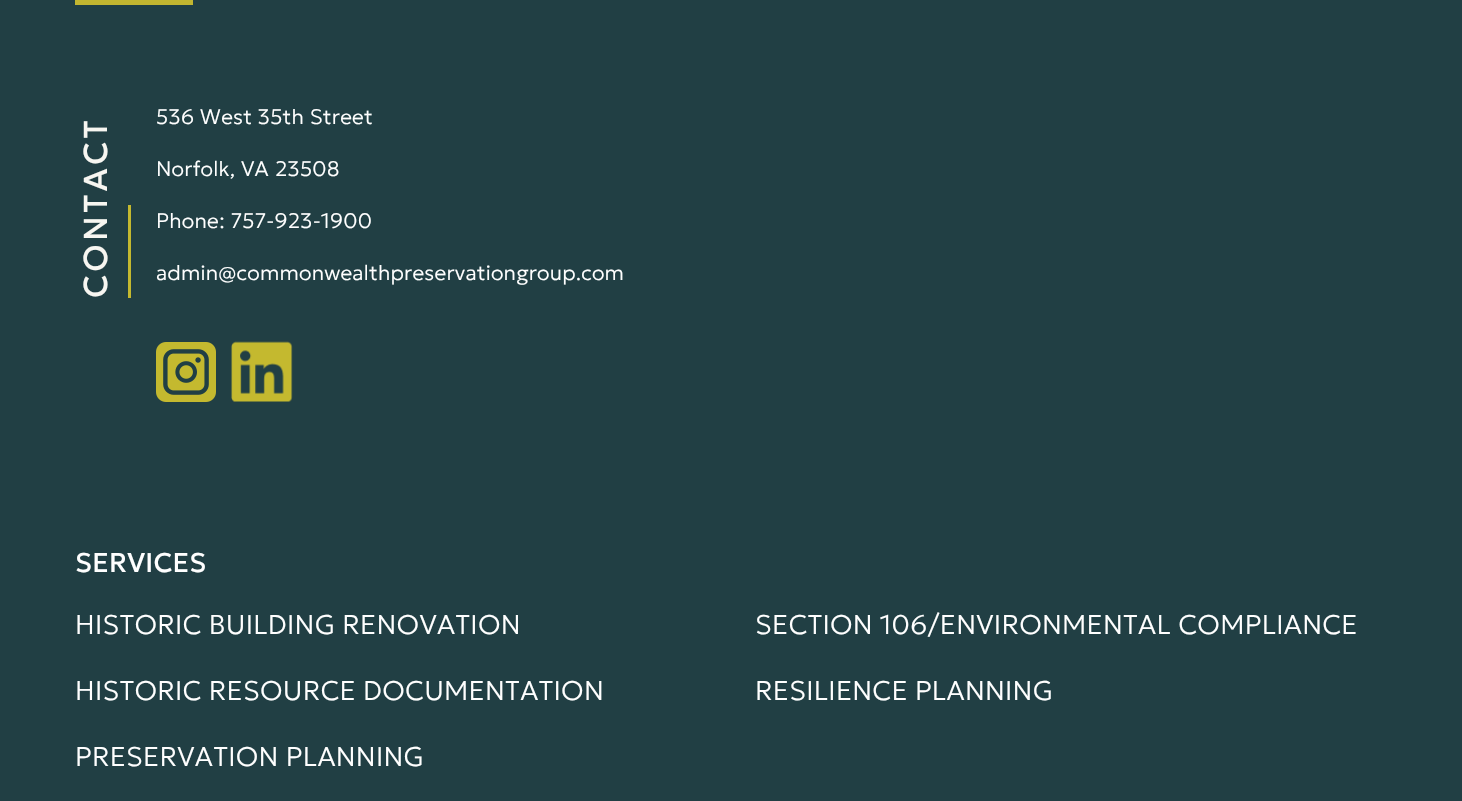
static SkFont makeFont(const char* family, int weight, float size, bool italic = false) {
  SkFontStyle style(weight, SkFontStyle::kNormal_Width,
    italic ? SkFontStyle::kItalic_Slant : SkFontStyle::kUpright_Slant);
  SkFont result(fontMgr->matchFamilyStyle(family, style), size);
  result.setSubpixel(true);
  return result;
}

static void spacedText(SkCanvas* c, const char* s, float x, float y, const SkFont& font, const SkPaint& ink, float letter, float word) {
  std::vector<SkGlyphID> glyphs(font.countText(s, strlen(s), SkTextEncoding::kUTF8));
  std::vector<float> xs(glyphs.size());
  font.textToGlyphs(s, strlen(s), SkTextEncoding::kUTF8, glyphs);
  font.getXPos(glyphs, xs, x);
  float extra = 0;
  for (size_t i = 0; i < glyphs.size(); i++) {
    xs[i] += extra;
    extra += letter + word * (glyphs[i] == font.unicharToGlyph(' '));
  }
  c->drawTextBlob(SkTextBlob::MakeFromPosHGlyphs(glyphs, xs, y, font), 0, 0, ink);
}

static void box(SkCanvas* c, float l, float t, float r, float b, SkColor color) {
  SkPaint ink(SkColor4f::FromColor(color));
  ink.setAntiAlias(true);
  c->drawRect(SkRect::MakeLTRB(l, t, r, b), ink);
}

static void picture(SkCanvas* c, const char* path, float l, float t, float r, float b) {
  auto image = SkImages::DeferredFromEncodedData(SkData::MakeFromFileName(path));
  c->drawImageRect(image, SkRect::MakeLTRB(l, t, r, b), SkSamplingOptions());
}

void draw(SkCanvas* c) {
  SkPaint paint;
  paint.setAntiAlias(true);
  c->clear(0xff213f44);
  box(c, 75, 0, 193, 5, 0xffc2b630);
  SkFont face1 = makeFont("Geologica", 200, 21);
  paint.setColor(0xffffffff);
  spacedText(c, "536 West 35th Street", 156, 124, face1, paint, 0.2f, 0);
  SkFont face2 = makeFont("Geologica", 400, 33);
  paint.setColor(0xfff7f6f1);
  c->save();
  c->rotate(-90, 107, 298);
  spacedText(c, "CONTACT", 107, 298, face2, paint, 3.25f, 0);
  c->restore();
  box(c, 128, 205, 131, 298, 0xffc4b92f);
  paint.setColor(0xffffffff);
  spacedText(c, "Norfolk,", 156, 176, face1, paint, 0.2f, 0);
  spacedText(c, "VA", 241, 176, face1, paint, 0.2f, 0);
  spacedText(c, "23508", 275, 176, face1, paint, 0.2f, 0);
  spacedText(c, "Phone: 757-923-1900", 156, 228, face1, paint, 0.2f, 0);
  spacedText(c, "admin@commonwealthpreservationgroup.com", 156, 280, face1, paint, 0.2f, 0);
  picture(c, "img_01.png", 156, 342, 216, 402);
  picture(c, "img_02.png", 231, 341, 293, 402);
  SkFont face3 = makeFont("Geologica", 400, 27);
  spacedText(c, "SERVICES", 75, 572, face3, paint, 0.25f, 0);
  SkFont face4 = makeFont("Geologica", 200, 27);
  spacedText(c, "HISTORIC BUILDING RENOVATION", 75, 634, face4, paint, 0.25f, 0);
  spacedText(c, "HISTORIC RESOURCE DOCUMENTATION", 75, 700, face4, paint, 0.25f, 0);
  spacedText(c, "PRESERVATION PLANNING", 75, 766, face4, paint, 0.25f, 0);
  spacedText(c, "SECTION 106/ENVIRONMENTAL COMPLIANCE", 755, 634, face4, paint, 0.25f, 0);
  spacedText(c, "RESILIENCE PLANNING", 755, 700, face4, paint, 0.25f, 0);
}
